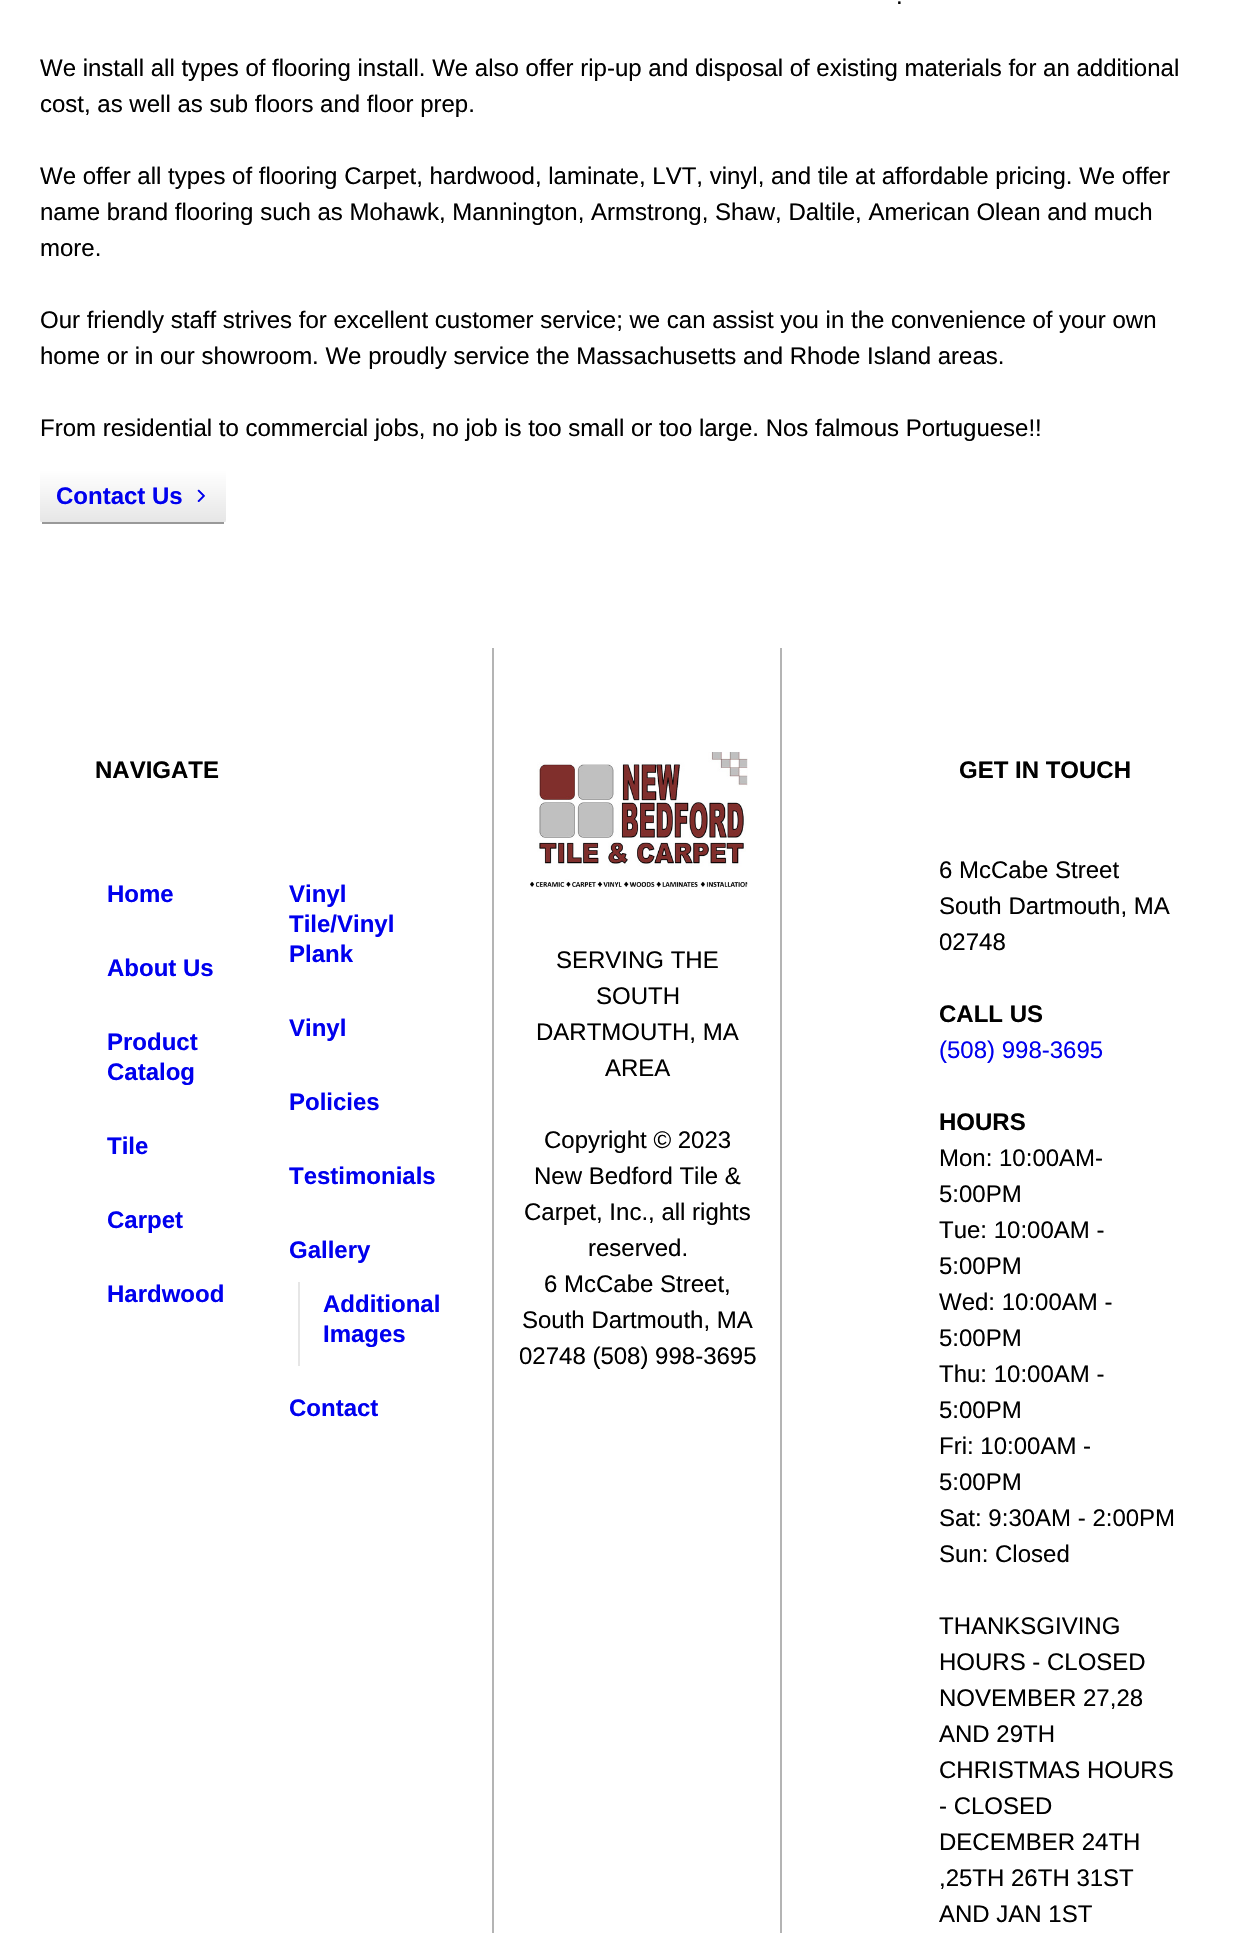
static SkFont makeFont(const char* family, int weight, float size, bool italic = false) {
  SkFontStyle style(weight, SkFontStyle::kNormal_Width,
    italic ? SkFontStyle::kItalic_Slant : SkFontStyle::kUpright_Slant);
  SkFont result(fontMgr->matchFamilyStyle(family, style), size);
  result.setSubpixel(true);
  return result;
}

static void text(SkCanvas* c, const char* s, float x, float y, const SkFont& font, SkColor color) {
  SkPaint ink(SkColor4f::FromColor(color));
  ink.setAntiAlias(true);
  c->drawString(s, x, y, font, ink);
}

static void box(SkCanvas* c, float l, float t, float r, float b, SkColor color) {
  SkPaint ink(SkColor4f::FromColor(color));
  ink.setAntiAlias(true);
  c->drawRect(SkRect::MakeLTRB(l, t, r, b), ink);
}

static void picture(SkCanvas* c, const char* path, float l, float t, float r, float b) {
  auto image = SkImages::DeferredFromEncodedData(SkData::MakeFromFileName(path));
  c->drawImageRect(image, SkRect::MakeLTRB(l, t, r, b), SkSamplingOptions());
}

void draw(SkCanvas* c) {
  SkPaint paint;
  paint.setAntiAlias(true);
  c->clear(0xffffffff);
  SkFont face1 = makeFont("Liberation Sans", 400, 24);
  text(c, ".", 896, 4, face1, 0xff000000);
  text(c, "We install all types of flooring install. We also offer rip-up and disposal of existing materials for an additional", 40, 76, face1, 0xff000000);
  text(c, "cost, as well as sub floors and floor prep.", 40, 112, face1, 0xff000000);
  text(c, "We offer all types of flooring Carpet, hardwood, laminate, LVT, vinyl, and tile at affordable pricing. We offer", 40, 184, face1, 0xff000000);
  text(c, "name brand flooring such as Mohawk, Mannington, Armstrong, Shaw, Daltile, American Olean and much", 40, 220, face1, 0xff000000);
  text(c, "more.", 40, 256, face1, 0xff000000);
  text(c, "Our friendly staff strives for excellent customer service; we can assist you in the convenience of your own", 40, 328, face1, 0xff000000);
  text(c, "home or in our showroom. We proudly service the Massachusetts and Rhode Island areas.", 40, 364, face1, 0xff000000);
  text(c, "From residential to commercial jobs, no job is too small or too large. Nos falmous Portuguese!!", 40, 436, face1, 0xff000000);
  c->save();
  c->clipPath(SkPathBuilder().moveTo(44, 470).lineTo(222, 470).cubicTo(224, 470, 226, 472, 226, 474).lineTo(226, 520).cubicTo(226, 522, 224, 524, 222, 524).lineTo(44, 524).cubicTo(42, 524, 40, 522, 40, 520).lineTo(40, 474).cubicTo(40, 472, 42, 470, 44, 470).close().detach(), true);
  {
    const SkColor colors[] = {0xffffffff, 0xffe6e6e6};
    const float stops[] = {0, 1};
    const SkPoint ends[] = {{133, 470}, {133, 522}};
    paint.setShader(SkGradientShader::MakeLinear(ends, colors, stops, 2, SkTileMode::kClamp));
    paint.setAlpha(255);
  }
  c->drawPath(SkPathBuilder().moveTo(44, 470).lineTo(222, 470).cubicTo(224, 470, 226, 472, 226, 474).lineTo(226, 522).lineTo(40, 522).lineTo(40, 474).cubicTo(40, 472, 42, 470, 44, 470).close().detach(), paint);
  c->restore();
  box(c, 42, 522, 224, 524, 0xff999999);
  SkFont face2 = makeFont("Liberation Sans", 700, 24);
  text(c, "Contact Us", 56, 504, face2, 0xff0000ee);
  SkFont face3 = makeFont("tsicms", 700, 18);
  text(c, ">", 192, 504, face3, 0xff0000ee);
  box(c, 492, 648, 494, 1933, 0xffb4b4b4);
  text(c, "NAVIGATE", 95, 778, face2, 0xff000000);
  text(c, "Home", 107, 902, face2, 0xff0000ee);
  text(c, "Vinyl", 289, 902, face2, 0xff0000ee);
  text(c, "Tile/Vinyl", 289, 932, face2, 0xff0000ee);
  text(c, "Plank", 289, 962, face2, 0xff0000ee);
  text(c, "About Us", 107, 976, face2, 0xff0000ee);
  text(c, "Vinyl", 289, 1036, face2, 0xff0000ee);
  text(c, "Product", 107, 1050, face2, 0xff0000ee);
  text(c, "Catalog", 107, 1080, face2, 0xff0000ee);
  text(c, "Policies", 289, 1110, face2, 0xff0000ee);
  text(c, "Tile", 107, 1154, face2, 0xff0000ee);
  text(c, "Testimonials", 289, 1184, face2, 0xff0000ee);
  text(c, "Carpet", 107, 1228, face2, 0xff0000ee);
  text(c, "Hardwood", 107, 1302, face2, 0xff0000ee);
  text(c, "Gallery", 289, 1258, face2, 0xff0000ee);
  box(c, 298, 1282, 300, 1366, 0xffe6e6e6);
  text(c, "Additional", 323, 1312, face2, 0xff0000ee);
  text(c, "Images", 323, 1342, face2, 0xff0000ee);
  text(c, "Contact", 289, 1416, face2, 0xff0000ee);
  box(c, 780, 648, 782, 1933, 0xffb4b4b4);
  picture(c, "img_01.png", 530, 752, 748, 888);
  text(c, "SERVING THE", 556, 968, face1, 0xff000000);
  text(c, "SOUTH", 596, 1004, face1, 0xff000000);
  text(c, "DARTMOUTH, MA", 536, 1040, face1, 0xff000000);
  text(c, "AREA", 605, 1076, face1, 0xff000000);
  text(c, "Copyright © 2023", 544, 1148, face1, 0xff000000);
  text(c, "New Bedford Tile &", 534, 1184, face1, 0xff000000);
  text(c, "Carpet, Inc., all rights", 524, 1220, face1, 0xff000000);
  text(c, "reserved.", 588, 1256, face1, 0xff000000);
  text(c, "6 McCabe Street,", 544, 1292, face1, 0xff000000);
  text(c, "South Dartmouth, MA", 522, 1328, face1, 0xff000000);
  text(c, "02748 (508) 998-3695", 519, 1364, face1, 0xff000000);
  text(c, "GET IN TOUCH", 959, 778, face2, 0xff000000);
  text(c, "6 McCabe Street", 939, 878, face1, 0xff000000);
  text(c, "South Dartmouth, MA", 939, 914, face1, 0xff000000);
  text(c, "02748", 939, 950, face1, 0xff000000);
  text(c, "CALL US", 939, 1022, face2, 0xff000000);
  text(c, "(508) 998-3695", 939, 1058, face1, 0xff0000ee);
  text(c, "HOURS", 939, 1130, face2, 0xff000000);
  text(c, "Mon: 10:00AM-", 939, 1166, face1, 0xff000000);
  text(c, "5:00PM", 939, 1202, face1, 0xff000000);
  text(c, "Tue: 10:00AM -", 939, 1238, face1, 0xff000000);
  text(c, "5:00PM", 939, 1274, face1, 0xff000000);
  text(c, "Wed: 10:00AM -", 939, 1310, face1, 0xff000000);
  text(c, "5:00PM", 939, 1346, face1, 0xff000000);
  text(c, "Thu: 10:00AM -", 939, 1382, face1, 0xff000000);
  text(c, "5:00PM", 939, 1418, face1, 0xff000000);
  text(c, "Fri: 10:00AM -", 939, 1454, face1, 0xff000000);
  text(c, "5:00PM", 939, 1490, face1, 0xff000000);
  text(c, "Sat: 9:30AM - 2:00PM", 939, 1526, face1, 0xff000000);
  text(c, "Sun: Closed", 939, 1562, face1, 0xff000000);
  text(c, "THANKSGIVING", 939, 1634, face1, 0xff000000);
  text(c, "HOURS - CLOSED", 939, 1670, face1, 0xff000000);
  text(c, "NOVEMBER 27,28", 939, 1706, face1, 0xff000000);
  text(c, "AND 29TH", 939, 1742, face1, 0xff000000);
  text(c, "CHRISTMAS HOURS", 939, 1778, face1, 0xff000000);
  text(c, "- CLOSED", 939, 1814, face1, 0xff000000);
  text(c, "DECEMBER 24TH", 939, 1850, face1, 0xff000000);
  text(c, ",25TH 26TH 31ST", 939, 1886, face1, 0xff000000);
  text(c, "AND JAN 1ST", 939, 1922, face1, 0xff000000);
}
